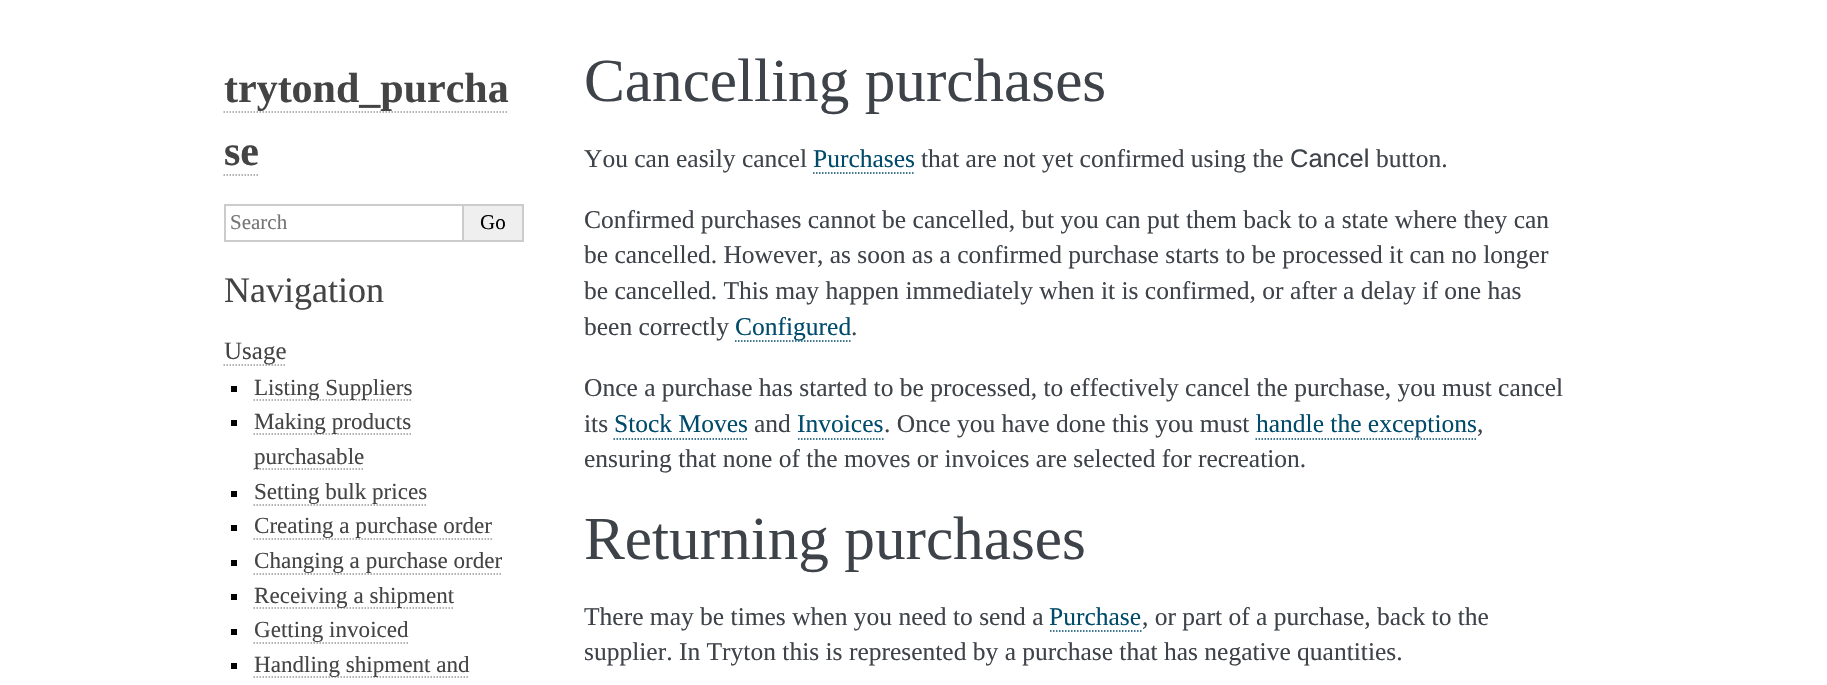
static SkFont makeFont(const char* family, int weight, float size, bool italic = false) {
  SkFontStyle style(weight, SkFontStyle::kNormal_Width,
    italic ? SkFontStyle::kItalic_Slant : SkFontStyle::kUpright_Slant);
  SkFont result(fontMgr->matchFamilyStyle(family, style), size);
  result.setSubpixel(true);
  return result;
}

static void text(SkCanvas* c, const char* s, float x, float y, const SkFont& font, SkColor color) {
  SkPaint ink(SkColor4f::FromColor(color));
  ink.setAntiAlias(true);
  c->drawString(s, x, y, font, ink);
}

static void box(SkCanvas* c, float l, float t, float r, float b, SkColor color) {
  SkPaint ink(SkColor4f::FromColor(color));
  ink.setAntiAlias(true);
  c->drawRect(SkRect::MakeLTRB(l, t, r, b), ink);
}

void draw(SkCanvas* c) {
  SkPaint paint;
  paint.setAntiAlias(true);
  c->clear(0xffffffff);
  paint.setStyle(SkPaint::kStroke_Style);
  paint.setStrokeWidth(1.5f);
  paint.setColor(0xff999999);
  paint.setPathEffect(SkDashPathEffect::Make({{1.5f, 1.5f}}, 0));
  c->drawPath(SkPathBuilder().moveTo(223.5f, 112).lineTo(508.5f, 112).detach(), paint);
  paint.setPathEffect(nullptr);
  SkFont face1 = makeFont("Liberation Serif", 700, 42);
  text(c, "trytond_purcha", 224, 102, face1, 0xff444444);
  text(c, "se", 224, 165, face1, 0xff444444);
  paint.setPathEffect(SkDashPathEffect::Make({{1.5f, 1.5f}}, 0));
  c->drawPath(SkPathBuilder().moveTo(223.5f, 175).lineTo(258, 175).detach(), paint);
  paint.setPathEffect(nullptr);
  paint.setStrokeWidth(2);
  paint.setColor(0xffcccccc);
  c->drawRect(SkRect::MakeLTRB(225, 205, 463, 241), paint);
  SkFont face2 = makeFont("Liberation Serif", 400, 21);
  text(c, "Search", 230, 229, face2, 0xff757575);
  box(c, 464, 206, 522, 240, 0xffefefef);
  box(c, 464, 204, 524, 206, 0xffcccccc);
  box(c, 522, 204, 524, 242, 0xffcccccc);
  box(c, 464, 240, 524, 242, 0xffcccccc);
  text(c, "Go", 480, 229, face2, 0xff000000);
  SkFont face3 = makeFont("Liberation Serif", 400, 36);
  text(c, "Navigation", 224, 302, face3, 0xff444444);
  paint.setStrokeWidth(1.5f);
  paint.setColor(0xff999999);
  paint.setPathEffect(SkDashPathEffect::Make({{1.5f, 1.5f}}, 0));
  c->drawPath(SkPathBuilder().moveTo(223.5f, 365).lineTo(286.5f, 365).detach(), paint);
  paint.setPathEffect(nullptr);
  SkFont face4 = makeFont("Liberation Serif", 400, 25);
  text(c, "Usage", 224, 359, face4, 0xff444444);
  box(c, 231, 386, 237, 392, 0xff000000);
  paint.setPathEffect(SkDashPathEffect::Make({{1.5f, 1.5f}}, 0));
  c->drawPath(SkPathBuilder().moveTo(253.5f, 400).lineTo(412.5f, 400).detach(), paint);
  paint.setPathEffect(nullptr);
  SkFont face5 = makeFont("Liberation Serif", 400, 23.1f);
  text(c, "Listing Suppliers", 254, 395, face5, 0xff444444);
  box(c, 231, 420, 237, 426, 0xff000000);
  paint.setPathEffect(SkDashPathEffect::Make({{1.5f, 1.5f}}, 0));
  c->drawPath(SkPathBuilder().moveTo(253.5f, 434).lineTo(411, 434).detach(), paint);
  paint.setPathEffect(nullptr);
  text(c, "Making products", 254, 429, face5, 0xff444444);
  paint.setPathEffect(SkDashPathEffect::Make({{1.5f, 1.5f}}, 0));
  c->drawPath(SkPathBuilder().moveTo(253.5f, 469).lineTo(364.5f, 469).detach(), paint);
  paint.setPathEffect(nullptr);
  text(c, "purchasable", 254, 464, face5, 0xff444444);
  box(c, 231, 491, 237, 497, 0xff000000);
  text(c, "Setting bulk prices", 254, 499, face5, 0xff444444);
  paint.setPathEffect(SkDashPathEffect::Make({{1.5f, 1.5f}}, 0));
  c->drawPath(SkPathBuilder().moveTo(253.5f, 505).lineTo(426, 505).detach(), paint);
  paint.setPathEffect(nullptr);
  box(c, 231, 525, 237, 531, 0xff000000);
  text(c, "Creating a purchase order", 254, 533, face5, 0xff444444);
  paint.setPathEffect(SkDashPathEffect::Make({{1.5f, 1.5f}}, 0));
  c->drawPath(SkPathBuilder().moveTo(253.5f, 539).lineTo(492, 539).detach(), paint);
  paint.setPathEffect(nullptr);
  box(c, 231, 560, 237, 566, 0xff000000);
  text(c, "Changing a purchase order", 254, 568, face5, 0xff444444);
  paint.setPathEffect(SkDashPathEffect::Make({{1.5f, 1.5f}}, 0));
  c->drawPath(SkPathBuilder().moveTo(253.5f, 574).lineTo(501, 574).detach(), paint);
  paint.setPathEffect(nullptr);
  box(c, 231, 594, 237, 600, 0xff000000);
  paint.setPathEffect(SkDashPathEffect::Make({{1.5f, 1.5f}}, 0));
  c->drawPath(SkPathBuilder().moveTo(253.5f, 608).lineTo(453, 608).detach(), paint);
  paint.setPathEffect(nullptr);
  text(c, "Receiving a shipment", 254, 603, face5, 0xff444444);
  box(c, 231, 629, 237, 635, 0xff000000);
  text(c, "Getting invoiced", 254, 637, face5, 0xff444444);
  paint.setPathEffect(SkDashPathEffect::Make({{1.5f, 1.5f}}, 0));
  c->drawPath(SkPathBuilder().moveTo(253.5f, 643).lineTo(408, 643).detach(), paint);
  paint.setPathEffect(nullptr);
  box(c, 231, 663, 237, 669, 0xff000000);
  paint.setPathEffect(SkDashPathEffect::Make({{1.5f, 1.5f}}, 0));
  c->drawPath(SkPathBuilder().moveTo(253.5f, 677).lineTo(469.5f, 677).detach(), paint);
  paint.setPathEffect(nullptr);
  text(c, "Handling shipment and", 254, 672, face5, 0xff444444);
  SkFont face6 = makeFont("Liberation Serif", 400, 61.25f);
  text(c, "Cancelling purchases", 584, 101, face6, 0xff3e4349);
  SkFont face7 = makeFont("Liberation Serif", 400, 25.5f);
  text(c, "You can easily cancel", 584, 167, face7, 0xff3e4349);
  text(c, "Purchases", 813, 167, face7, 0xff004b6b);
  paint.setColor(0xff004b6b);
  paint.setPathEffect(SkDashPathEffect::Make({{1.5f, 1.5f}}, 0));
  c->drawPath(SkPathBuilder().moveTo(813, 173).lineTo(915, 173).detach(), paint);
  paint.setPathEffect(nullptr);
  text(c, "that are not yet confirmed using the", 921, 167, face7, 0xff3e4349);
  SkFont face8 = makeFont("Liberation Sans", 400, 25.5f);
  text(c, "Cancel", 1290, 167, face8, 0xff3e4349);
  text(c, "button.", 1376, 167, face7, 0xff3e4349);
  text(c, "Confirmed purchases cannot be cancelled, but you can put them back to a state where they can", 584, 228, face7, 0xff3e4349);
  text(c, "be cancelled. However, as soon as a confirmed purchase starts to be processed it can no longer", 584, 263, face7, 0xff3e4349);
  text(c, "be cancelled. This may happen immediately when it is confirmed, or after a delay if one has", 584, 299, face7, 0xff3e4349);
  text(c, "been correctly", 584, 335, face7, 0xff3e4349);
  paint.setPathEffect(SkDashPathEffect::Make({{1.5f, 1.5f}}, 0));
  c->drawPath(SkPathBuilder().moveTo(735, 341).lineTo(850.5f, 341).detach(), paint);
  paint.setPathEffect(nullptr);
  text(c, "Configured", 735, 335, face7, 0xff004b6b);
  text(c, ".", 851, 335, face7, 0xff3e4349);
  text(c, "Once a purchase has started to be processed, to effectively cancel the purchase, you must cancel", 584, 396, face7, 0xff3e4349);
  text(c, "its", 584, 432, face7, 0xff3e4349);
  text(c, "Stock Moves", 614, 432, face7, 0xff004b6b);
  paint.setPathEffect(SkDashPathEffect::Make({{1.5f, 1.5f}}, 0));
  c->drawPath(SkPathBuilder().moveTo(613.5f, 439).lineTo(748.5f, 439).detach(), paint);
  paint.setPathEffect(nullptr);
  text(c, "and", 754, 432, face7, 0xff3e4349);
  text(c, "Invoices", 797, 432, face7, 0xff004b6b);
  paint.setPathEffect(SkDashPathEffect::Make({{1.5f, 1.5f}}, 0));
  c->drawPath(SkPathBuilder().moveTo(798, 439).lineTo(883.5f, 439).detach(), paint);
  paint.setPathEffect(nullptr);
  text(c, ". Once you have done this you must", 884, 432, face7, 0xff3e4349);
  text(c, "handle the exceptions", 1256, 432, face7, 0xff004b6b);
  paint.setPathEffect(SkDashPathEffect::Make({{1.5f, 1.5f}}, 0));
  c->drawPath(SkPathBuilder().moveTo(1255.5f, 439).lineTo(1476, 439).detach(), paint);
  paint.setPathEffect(nullptr);
  text(c, ",", 1477, 432, face7, 0xff3e4349);
  text(c, "ensuring that none of the moves or invoices are selected for recreation.", 584, 467, face7, 0xff3e4349);
  text(c, "Returning purchases", 584, 559, face6, 0xff3e4349);
  text(c, "There may be times when you need to send a", 584, 625, face7, 0xff3e4349);
  text(c, "Purchase", 1049, 625, face7, 0xff004b6b);
  paint.setPathEffect(SkDashPathEffect::Make({{1.5f, 1.5f}}, 0));
  c->drawPath(SkPathBuilder().moveTo(1050, 631).lineTo(1141.5f, 631).detach(), paint);
  paint.setPathEffect(nullptr);
  text(c, ", or part of a purchase, back to the", 1142, 625, face7, 0xff3e4349);
  text(c, "supplier. In Tryton this is represented by a purchase that has negative quantities.", 584, 660, face7, 0xff3e4349);
}
